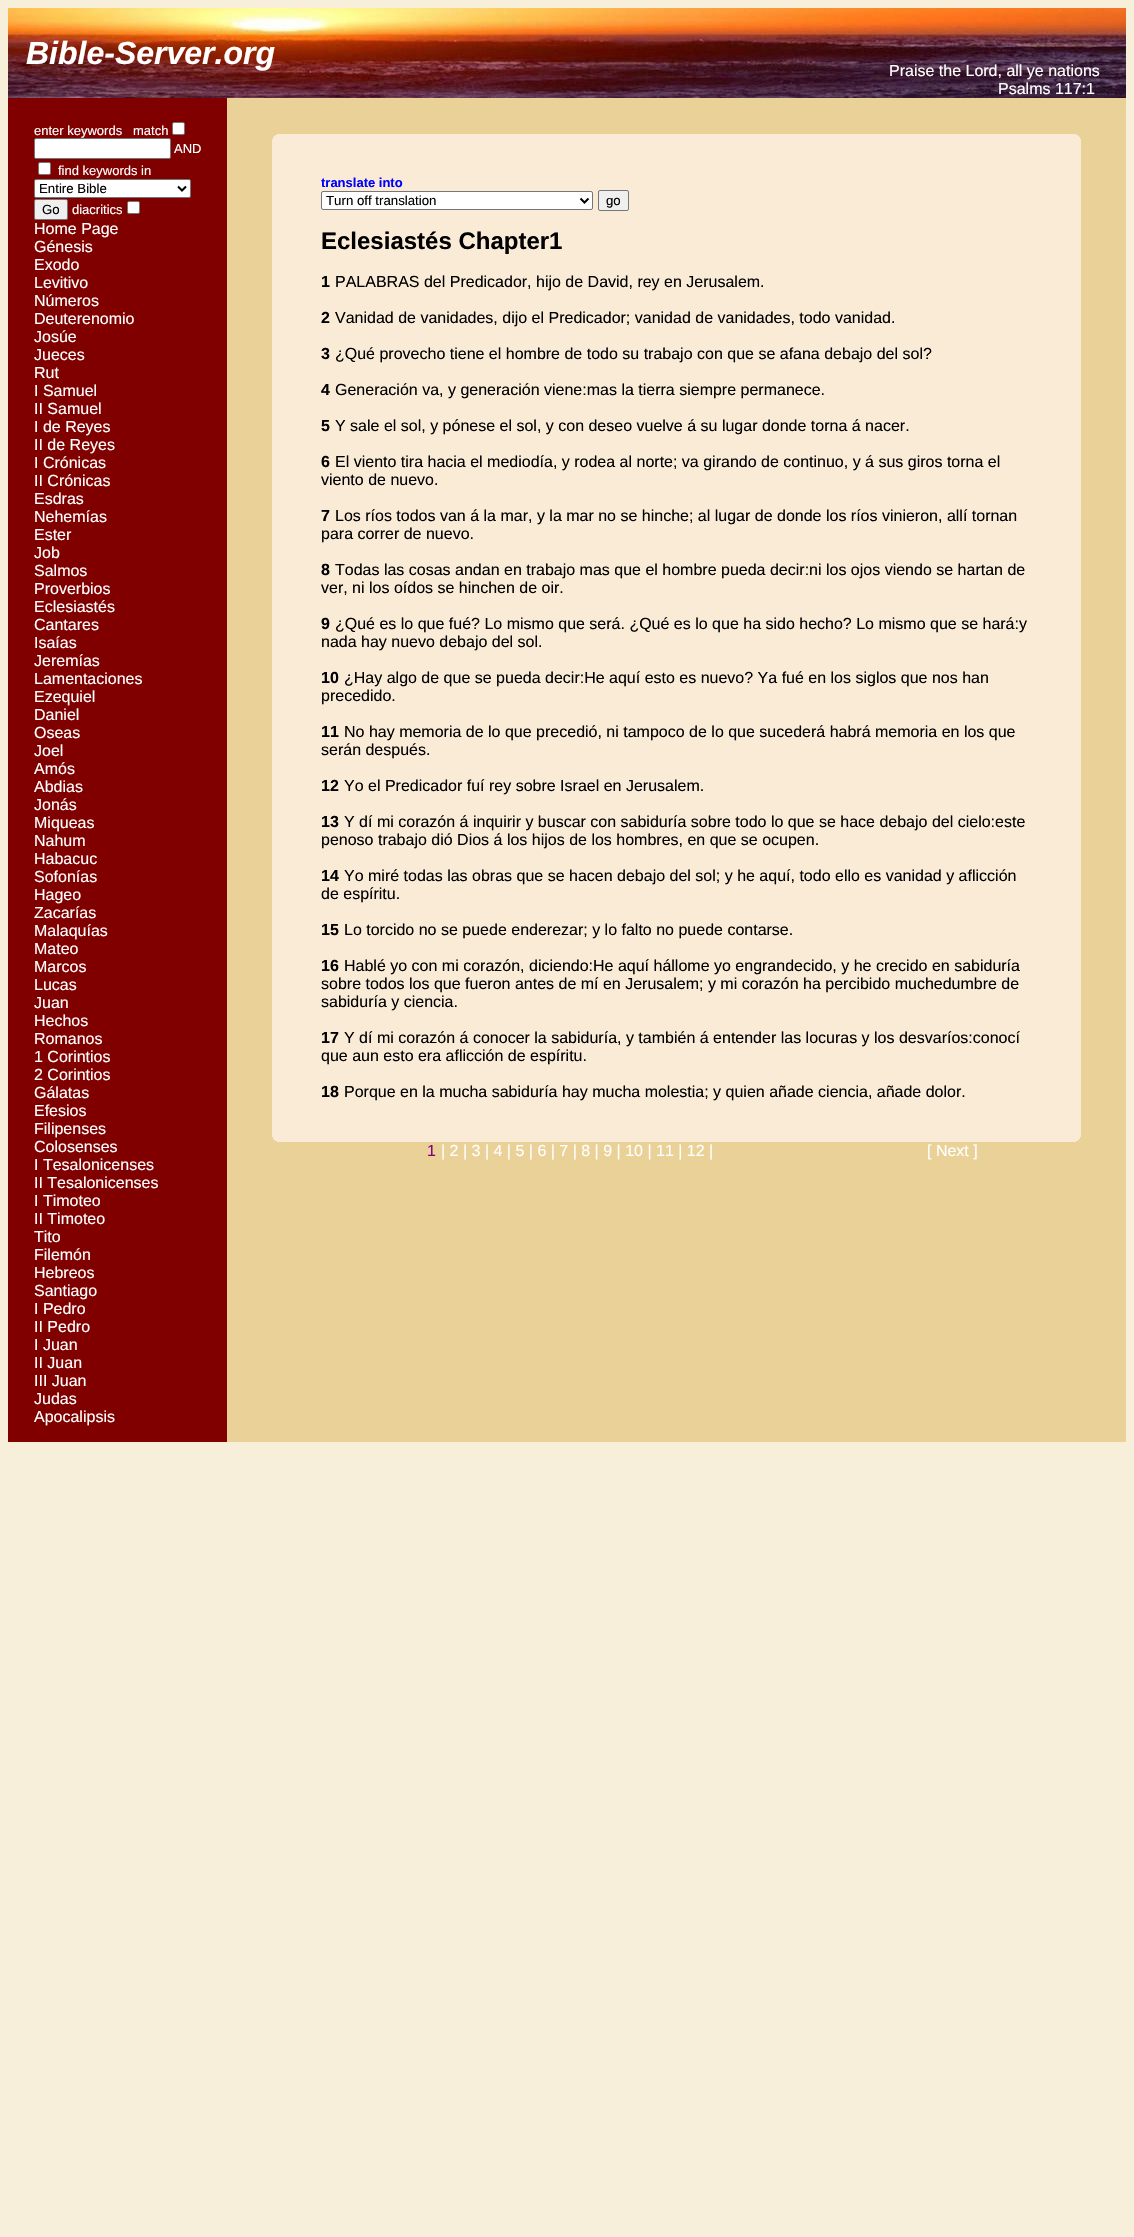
static SkFont makeFont(const char* family, int weight, float size, bool italic = false) {
  SkFontStyle style(weight, SkFontStyle::kNormal_Width,
    italic ? SkFontStyle::kItalic_Slant : SkFontStyle::kUpright_Slant);
  SkFont result(fontMgr->matchFamilyStyle(family, style), size);
  result.setSubpixel(true);
  return result;
}

static void text(SkCanvas* c, const char* s, float x, float y, const SkFont& font, SkColor color) {
  SkPaint ink(SkColor4f::FromColor(color));
  ink.setAntiAlias(true);
  c->drawString(s, x, y, font, ink);
}

static void box(SkCanvas* c, float l, float t, float r, float b, SkColor color) {
  SkPaint ink(SkColor4f::FromColor(color));
  ink.setAntiAlias(true);
  c->drawRect(SkRect::MakeLTRB(l, t, r, b), ink);
}

static void picture(SkCanvas* c, const char* path, float l, float t, float r, float b) {
  auto image = SkImages::DeferredFromEncodedData(SkData::MakeFromFileName(path));
  c->drawImageRect(image, SkRect::MakeLTRB(l, t, r, b), SkSamplingOptions());
}

void draw(SkCanvas* c) {
  SkPaint paint;
  paint.setAntiAlias(true);
  c->clear(0xfff8efda);
  picture(c, "img_01.png", 8, 8, 1126, 98);
  SkFont face1 = makeFont("Liberation Sans", 700, 32, true);
  text(c, "Bible-Server.org", 26, 64, face1, 0xffffffff);
  SkFont face2 = makeFont("Liberation Sans", 400, 16);
  text(c, "Praise the Lord, all ye nations", 889, 76, face2, 0xffffffff);
  text(c, "Psalms 117:1", 998, 94, face2, 0xffffffff);
  box(c, 8, 98, 227, 1442, 0xff800000);
  SkFont face3 = makeFont("Liberation Sans", 400, 13);
  text(c, "enter keywords   match", 34, 135, face3, 0xffffffff);
  paint.setColor(0xffffffff);
  c->drawRoundRect(SkRect::MakeLTRB(172.5f, 122.5f, 184.5f, 134.5f), 1.5f, 1.5f, paint);
  paint.setStyle(SkPaint::kStroke_Style);
  paint.setStrokeWidth(1);
  paint.setColor(0xff767676);
  c->drawRoundRect(SkRect::MakeLTRB(172.5f, 122.5f, 184.5f, 134.5f), 1.5f, 1.5f, paint);
  paint.setStyle(SkPaint::kFill_Style);
  paint.setColor(0xffffffff);
  c->drawRoundRect(SkRect::MakeLTRB(34.5f, 138.5f, 170.5f, 158.5f), 1.5f, 1.5f, paint);
  paint.setStyle(SkPaint::kStroke_Style);
  paint.setColor(0xff767676);
  c->drawRoundRect(SkRect::MakeLTRB(34.5f, 138.5f, 170.5f, 158.5f), 1.5f, 1.5f, paint);
  text(c, "AND", 174, 153, face3, 0xffffffff);
  paint.setStyle(SkPaint::kFill_Style);
  paint.setColor(0xffffffff);
  c->drawRoundRect(SkRect::MakeLTRB(38.5f, 162.5f, 50.5f, 174.5f), 1.5f, 1.5f, paint);
  paint.setStyle(SkPaint::kStroke_Style);
  paint.setColor(0xff767676);
  c->drawRoundRect(SkRect::MakeLTRB(38.5f, 162.5f, 50.5f, 174.5f), 1.5f, 1.5f, paint);
  text(c, "find keywords in", 58, 175, face3, 0xffffffff);
  paint.setStyle(SkPaint::kFill_Style);
  paint.setColor(0xffffffff);
  c->drawRoundRect(SkRect::MakeLTRB(34.5f, 179.5f, 190.5f, 197.5f), 1.5f, 1.5f, paint);
  paint.setStyle(SkPaint::kStroke_Style);
  paint.setColor(0xff767676);
  c->drawRoundRect(SkRect::MakeLTRB(34.5f, 179.5f, 190.5f, 197.5f), 1.5f, 1.5f, paint);
  paint.setStrokeWidth(2);
  paint.setColor(0xff000000);
  c->drawPath(SkPathBuilder().moveTo(178, 186.5f).lineTo(182, 190.5f).lineTo(186, 186.5f).detach(), paint);
  SkFont face4 = makeFont("Liberation Sans", 400, 13.25f);
  text(c, "Entire Bible", 39, 193, face4, 0xff000000);
  text(c, "diacritics", 72, 214, face3, 0xffffffff);
  paint.setStyle(SkPaint::kFill_Style);
  paint.setColor(0xffffffff);
  c->drawRoundRect(SkRect::MakeLTRB(127.5f, 201.5f, 139.5f, 213.5f), 1.5f, 1.5f, paint);
  paint.setStyle(SkPaint::kStroke_Style);
  paint.setStrokeWidth(1);
  paint.setColor(0xff767676);
  c->drawRoundRect(SkRect::MakeLTRB(127.5f, 201.5f, 139.5f, 213.5f), 1.5f, 1.5f, paint);
  text(c, "Home Page", 34, 234, face2, 0xffffffff);
  text(c, "Génesis", 34, 252, face2, 0xffffffff);
  text(c, "Exodo", 34, 270, face2, 0xffffffff);
  text(c, "Levitivo", 34, 288, face2, 0xffffffff);
  text(c, "Números", 34, 306, face2, 0xffffffff);
  text(c, "Deuterenomio", 34, 324, face2, 0xffffffff);
  text(c, "Josúe", 34, 342, face2, 0xffffffff);
  text(c, "Jueces", 34, 360, face2, 0xffffffff);
  text(c, "Rut", 34, 378, face2, 0xffffffff);
  text(c, "I Samuel", 34, 396, face2, 0xffffffff);
  text(c, "II Samuel", 34, 414, face2, 0xffffffff);
  text(c, "I de Reyes", 34, 432, face2, 0xffffffff);
  text(c, "II de Reyes", 34, 450, face2, 0xffffffff);
  text(c, "I Crónicas", 34, 468, face2, 0xffffffff);
  text(c, "II Crónicas", 34, 486, face2, 0xffffffff);
  text(c, "Esdras", 34, 504, face2, 0xffffffff);
  text(c, "Nehemías", 34, 522, face2, 0xffffffff);
  text(c, "Ester", 34, 540, face2, 0xffffffff);
  text(c, "Job", 34, 558, face2, 0xffffffff);
  text(c, "Salmos", 34, 576, face2, 0xffffffff);
  text(c, "Proverbios", 34, 594, face2, 0xffffffff);
  text(c, "Eclesiastés", 34, 612, face2, 0xffffffff);
  text(c, "Cantares", 34, 630, face2, 0xffffffff);
  text(c, "Isaías", 34, 648, face2, 0xffffffff);
  text(c, "Jeremías", 34, 666, face2, 0xffffffff);
  text(c, "Lamentaciones", 34, 684, face2, 0xffffffff);
  text(c, "Ezequiel", 34, 702, face2, 0xffffffff);
  text(c, "Daniel", 34, 720, face2, 0xffffffff);
  text(c, "Oseas", 34, 738, face2, 0xffffffff);
  text(c, "Joel", 34, 756, face2, 0xffffffff);
  text(c, "Amós", 34, 774, face2, 0xffffffff);
  text(c, "Abdias", 34, 792, face2, 0xffffffff);
  text(c, "Jonás", 34, 810, face2, 0xffffffff);
  text(c, "Miqueas", 34, 828, face2, 0xffffffff);
  text(c, "Nahum", 34, 846, face2, 0xffffffff);
  text(c, "Habacuc", 34, 864, face2, 0xffffffff);
  text(c, "Sofonías", 34, 882, face2, 0xffffffff);
  text(c, "Hageo", 34, 900, face2, 0xffffffff);
  text(c, "Zacarías", 34, 918, face2, 0xffffffff);
  text(c, "Malaquías", 34, 936, face2, 0xffffffff);
  text(c, "Mateo", 34, 954, face2, 0xffffffff);
  text(c, "Marcos", 34, 972, face2, 0xffffffff);
  text(c, "Lucas", 34, 990, face2, 0xffffffff);
  text(c, "Juan", 34, 1008, face2, 0xffffffff);
  text(c, "Hechos", 34, 1026, face2, 0xffffffff);
  text(c, "Romanos", 34, 1044, face2, 0xffffffff);
  text(c, "1 Corintios", 34, 1062, face2, 0xffffffff);
  text(c, "2 Corintios", 34, 1080, face2, 0xffffffff);
  text(c, "Gálatas", 34, 1098, face2, 0xffffffff);
  text(c, "Efesios", 34, 1116, face2, 0xffffffff);
  text(c, "Filipenses", 34, 1134, face2, 0xffffffff);
  text(c, "Colosenses", 34, 1152, face2, 0xffffffff);
  text(c, "I Tesalonicenses", 34, 1170, face2, 0xffffffff);
  text(c, "II Tesalonicenses", 34, 1188, face2, 0xffffffff);
  text(c, "I Timoteo", 34, 1206, face2, 0xffffffff);
  text(c, "II Timoteo", 34, 1224, face2, 0xffffffff);
  text(c, "Tito", 34, 1242, face2, 0xffffffff);
  text(c, "Filemón", 34, 1260, face2, 0xffffffff);
  text(c, "Hebreos", 34, 1278, face2, 0xffffffff);
  text(c, "Santiago", 34, 1296, face2, 0xffffffff);
  text(c, "I Pedro", 34, 1314, face2, 0xffffffff);
  text(c, "II Pedro", 34, 1332, face2, 0xffffffff);
  text(c, "I Juan", 34, 1350, face2, 0xffffffff);
  text(c, "II Juan", 34, 1368, face2, 0xffffffff);
  text(c, "III Juan", 34, 1386, face2, 0xffffffff);
  text(c, "Judas", 34, 1404, face2, 0xffffffff);
  text(c, "Apocalipsis", 34, 1422, face2, 0xffffffff);
  paint.setStyle(SkPaint::kFill_Style);
  paint.setColor(0xffefefef);
  c->drawRoundRect(SkRect::MakeLTRB(34.5f, 199.5f, 67.5f, 219.5f), 1.5f, 1.5f, paint);
  paint.setStyle(SkPaint::kStroke_Style);
  paint.setColor(0xff767676);
  c->drawRoundRect(SkRect::MakeLTRB(34.5f, 199.5f, 67.5f, 219.5f), 1.5f, 1.5f, paint);
  text(c, "Go", 42, 214, face4, 0xff000000);
  box(c, 227, 98, 1126, 1442, 0xffead197);
  box(c, 272, 139, 1081, 1137, 0xfffaebd7);
  box(c, 277, 134, 1076, 135, 0xfffaebd7);
  box(c, 275, 135, 1078, 136, 0xfffaebd7);
  box(c, 274, 136, 1079, 137, 0xfffaebd7);
  box(c, 273, 137, 1080, 139, 0xfffaebd7);
  SkFont face5 = makeFont("Liberation Sans", 700, 13);
  text(c, "translate into", 321, 187, face5, 0xff0000ff);
  paint.setStyle(SkPaint::kFill_Style);
  paint.setColor(0xffffffff);
  c->drawRoundRect(SkRect::MakeLTRB(321.5f, 191.5f, 592.5f, 209.5f), 1.5f, 1.5f, paint);
  paint.setStyle(SkPaint::kStroke_Style);
  paint.setColor(0xff767676);
  c->drawRoundRect(SkRect::MakeLTRB(321.5f, 191.5f, 592.5f, 209.5f), 1.5f, 1.5f, paint);
  paint.setStrokeWidth(2);
  paint.setColor(0xff000000);
  c->drawPath(SkPathBuilder().moveTo(580.5f, 198.5f).lineTo(584.5f, 202.5f).lineTo(588.5f, 198.5f).detach(), paint);
  text(c, "Turn off translation", 326, 205, face4, 0xff000000);
  paint.setStyle(SkPaint::kFill_Style);
  paint.setColor(0xffefefef);
  c->drawRoundRect(SkRect::MakeLTRB(598.5f, 190.5f, 628.5f, 210.5f), 1.5f, 1.5f, paint);
  paint.setStyle(SkPaint::kStroke_Style);
  paint.setStrokeWidth(1);
  paint.setColor(0xff767676);
  c->drawRoundRect(SkRect::MakeLTRB(598.5f, 190.5f, 628.5f, 210.5f), 1.5f, 1.5f, paint);
  text(c, "go", 606, 205, face4, 0xff000000);
  SkFont face6 = makeFont("Liberation Sans", 700, 24);
  text(c, "Eclesiastés Chapter1", 321, 249, face6, 0xff000000);
  SkFont face7 = makeFont("Liberation Sans", 700, 16);
  text(c, "1", 321, 287, face7, 0xff000000);
  text(c, "PALABRAS del Predicador, hijo de David, rey en Jerusalem.", 335, 287, face2, 0xff000000);
  text(c, "2", 321, 323, face7, 0xff000000);
  text(c, "Vanidad de vanidades, dijo el Predicador; vanidad de vanidades, todo vanidad.", 335, 323, face2, 0xff000000);
  text(c, "3", 321, 359, face7, 0xff000000);
  text(c, "¿Qué provecho tiene el hombre de todo su trabajo con que se afana debajo del sol?", 335, 359, face2, 0xff000000);
  text(c, "4", 321, 395, face7, 0xff000000);
  text(c, "Generación va, y generación viene:mas la tierra siempre permanece.", 335, 395, face2, 0xff000000);
  text(c, "5", 321, 431, face7, 0xff000000);
  text(c, "Y sale el sol, y pónese el sol, y con deseo vuelve á su lugar donde torna á nacer.", 335, 431, face2, 0xff000000);
  text(c, "6", 321, 467, face7, 0xff000000);
  text(c, "El viento tira hacia el mediodía, y rodea al norte; va girando de continuo, y á sus giros torna el", 335, 467, face2, 0xff000000);
  text(c, "viento de nuevo.", 321, 485, face2, 0xff000000);
  text(c, "7", 321, 521, face7, 0xff000000);
  text(c, "Los ríos todos van á la mar, y la mar no se hinche; al lugar de donde los ríos vinieron, allí tornan", 335, 521, face2, 0xff000000);
  text(c, "para correr de nuevo.", 321, 539, face2, 0xff000000);
  text(c, "8", 321, 575, face7, 0xff000000);
  text(c, "Todas las cosas andan en trabajo mas que el hombre pueda decir:ni los ojos viendo se hartan de", 335, 575, face2, 0xff000000);
  text(c, "ver, ni los oídos se hinchen de oir.", 321, 593, face2, 0xff000000);
  text(c, "9", 321, 629, face7, 0xff000000);
  text(c, "¿Qué es lo que fué? Lo mismo que será. ¿Qué es lo que ha sido hecho? Lo mismo que se hará:y", 335, 629, face2, 0xff000000);
  text(c, "nada hay nuevo debajo del sol.", 321, 647, face2, 0xff000000);
  text(c, "10", 321, 683, face7, 0xff000000);
  text(c, "¿Hay algo de que se pueda decir:He aquí esto es nuevo? Ya fué en los siglos que nos han", 344, 683, face2, 0xff000000);
  text(c, "precedido.", 321, 701, face2, 0xff000000);
  text(c, "11", 321, 737, face7, 0xff000000);
  text(c, "No hay memoria de lo que precedió, ni tampoco de lo que sucederá habrá memoria en los que", 344, 737, face2, 0xff000000);
  text(c, "serán después.", 321, 755, face2, 0xff000000);
  text(c, "12", 321, 791, face7, 0xff000000);
  text(c, "Yo el Predicador fuí rey sobre Israel en Jerusalem.", 344, 791, face2, 0xff000000);
  text(c, "13", 321, 827, face7, 0xff000000);
  text(c, "Y dí mi corazón á inquirir y buscar con sabiduría sobre todo lo que se hace debajo del cielo:este", 344, 827, face2, 0xff000000);
  text(c, "penoso trabajo dió Dios á los hijos de los hombres, en que se ocupen.", 321, 845, face2, 0xff000000);
  text(c, "14", 321, 881, face7, 0xff000000);
  text(c, "Yo miré todas las obras que se hacen debajo del sol; y he aquí, todo ello es vanidad y aflicción", 344, 881, face2, 0xff000000);
  text(c, "de espíritu.", 321, 899, face2, 0xff000000);
  text(c, "15", 321, 935, face7, 0xff000000);
  text(c, "Lo torcido no se puede enderezar; y lo falto no puede contarse.", 344, 935, face2, 0xff000000);
  text(c, "16", 321, 971, face7, 0xff000000);
  text(c, "Hablé yo con mi corazón, diciendo:He aquí hállome yo engrandecido, y he crecido en sabiduría", 344, 971, face2, 0xff000000);
  text(c, "sobre todos los que fueron antes de mí en Jerusalem; y mi corazón ha percibido muchedumbre de", 321, 989, face2, 0xff000000);
  text(c, "sabiduría y ciencia.", 321, 1007, face2, 0xff000000);
  text(c, "17", 321, 1043, face7, 0xff000000);
  text(c, "Y dí mi corazón á conocer la sabiduría, y también á entender las locuras y los desvaríos:conocí", 344, 1043, face2, 0xff000000);
  text(c, "que aun esto era aflicción de espíritu.", 321, 1061, face2, 0xff000000);
  text(c, "18", 321, 1097, face7, 0xff000000);
  text(c, "Porque en la mucha sabiduría hay mucha molestia; y quien añade ciencia, añade dolor.", 344, 1097, face2, 0xff000000);
  box(c, 273, 1137, 1080, 1139, 0xfffaebd7);
  box(c, 274, 1139, 1079, 1140, 0xfffaebd7);
  box(c, 275, 1140, 1078, 1141, 0xfffaebd7);
  box(c, 277, 1141, 1076, 1142, 0xfffaebd7);
  text(c, "1", 427, 1156, face2, 0xff800080);
  text(c, "| 2 | 3 | 4 | 5 | 6 | 7 | 8 | 9 | 10 | 11 | 12 |", 441, 1156, face2, 0xffffffff);
  text(c, "[ Next ]", 927, 1156, face2, 0xffffffff);
}
